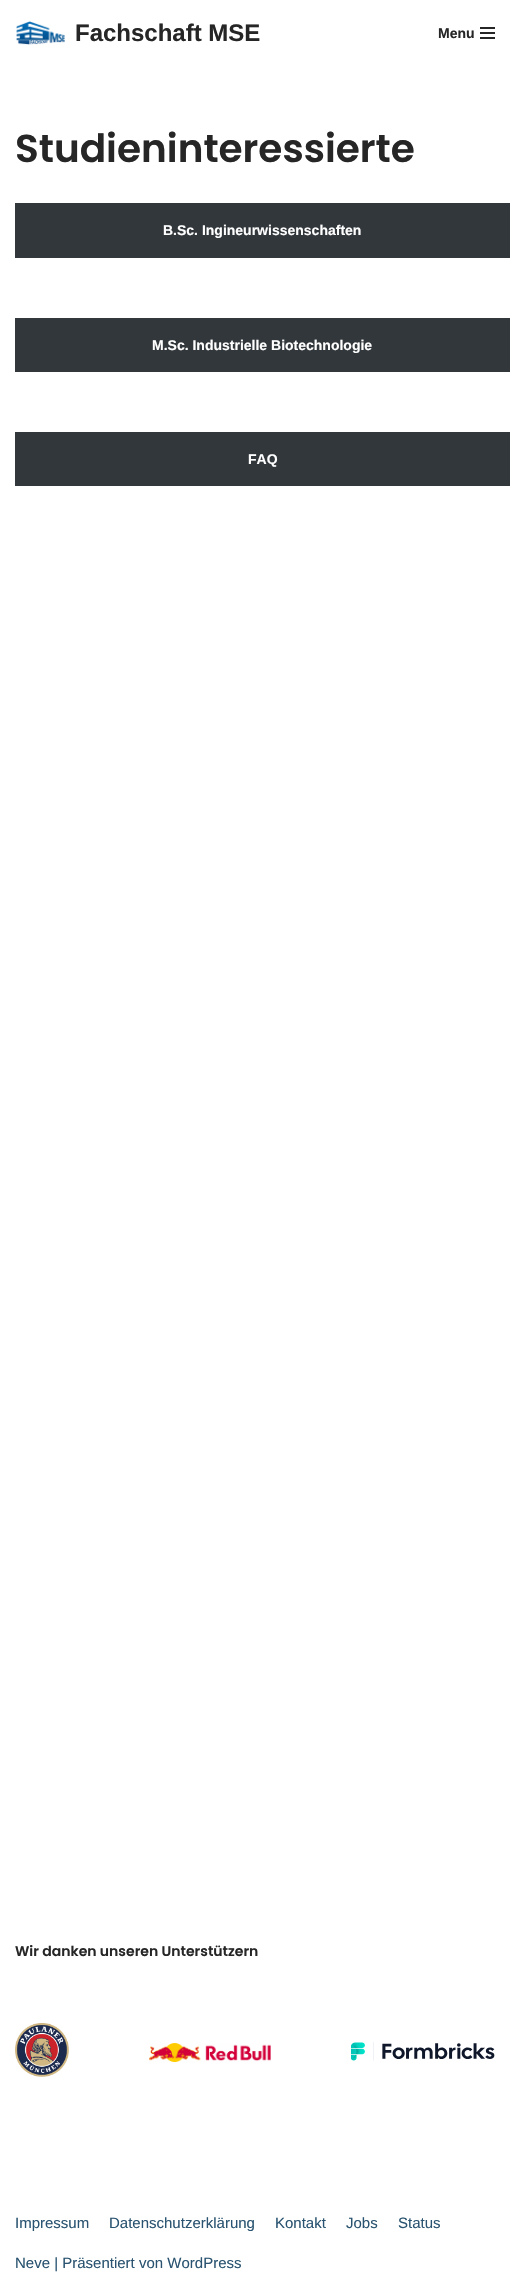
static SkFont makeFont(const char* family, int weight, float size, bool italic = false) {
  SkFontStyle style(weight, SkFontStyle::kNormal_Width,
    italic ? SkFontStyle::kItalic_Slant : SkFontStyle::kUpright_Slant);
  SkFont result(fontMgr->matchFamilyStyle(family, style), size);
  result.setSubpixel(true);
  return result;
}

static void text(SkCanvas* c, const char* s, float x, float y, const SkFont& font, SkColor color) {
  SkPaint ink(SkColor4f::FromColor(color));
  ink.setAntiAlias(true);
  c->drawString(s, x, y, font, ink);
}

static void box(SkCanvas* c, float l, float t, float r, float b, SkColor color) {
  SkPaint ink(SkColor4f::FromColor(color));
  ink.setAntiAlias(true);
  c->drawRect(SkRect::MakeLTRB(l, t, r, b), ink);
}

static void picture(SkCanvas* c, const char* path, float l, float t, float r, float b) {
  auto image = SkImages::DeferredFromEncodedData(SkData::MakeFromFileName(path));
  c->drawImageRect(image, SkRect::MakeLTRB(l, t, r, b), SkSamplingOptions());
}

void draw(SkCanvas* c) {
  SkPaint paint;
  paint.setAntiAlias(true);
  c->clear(0xffffffff);
  picture(c, "img_01.png", 16, 21, 65, 45);
  SkFont face1 = makeFont("Liberation Sans", 700, 24);
  text(c, "Fachschaft MSE", 75, 41, face1, 0xff272626);
  SkFont face2 = makeFont("Liberation Sans", 700, 14);
  text(c, "Menu", 438, 38, face2, 0xff272626);
  box(c, 480, 27, 495, 29, 0xff272626);
  box(c, 480, 32, 495, 34, 0xff272626);
  box(c, 480, 37, 495, 39, 0xff272626);
  SkFont face3 = makeFont("Poppins", 600, 39);
  text(c, "Studieninteressierte", 15, 162, face3, 0xff272626);
  box(c, 15, 203, 510, 258, 0xff32373c);
  text(c, "B.Sc. Ingineurwissenschaften", 163, 235, face2, 0xffffffff);
  box(c, 15, 318, 510, 372, 0xff32373c);
  text(c, "M.Sc. Industrielle Biotechnologie", 152, 350, face2, 0xffffffff);
  box(c, 15, 432, 510, 486, 0xff32373c);
  text(c, "FAQ", 248, 464, face2, 0xffffffff);
  SkFont face4 = makeFont("Poppins", 600, 14);
  text(c, "Wir danken unseren Unterstützern", 15, 1956, face4, 0xff272626);
  picture(c, "img_02.png", 15, 2023, 69, 2077);
  picture(c, "img_03.png", 149, 2043, 271, 2062);
  picture(c, "img_04.png", 351, 2042, 495, 2061);
  SkFont face5 = makeFont("Liberation Sans", 400, 15);
  text(c, "Impressum", 15, 2228, face5, 0xff295370);
  text(c, "Datenschutzerklärung", 109, 2228, face5, 0xff295370);
  text(c, "Kontakt", 275, 2228, face5, 0xff295370);
  text(c, "Jobs", 346, 2228, face5, 0xff295370);
  text(c, "Status", 398, 2228, face5, 0xff295370);
  text(c, "Neve | Präsentiert von WordPress", 15, 2268, face5, 0xff295370);
}
